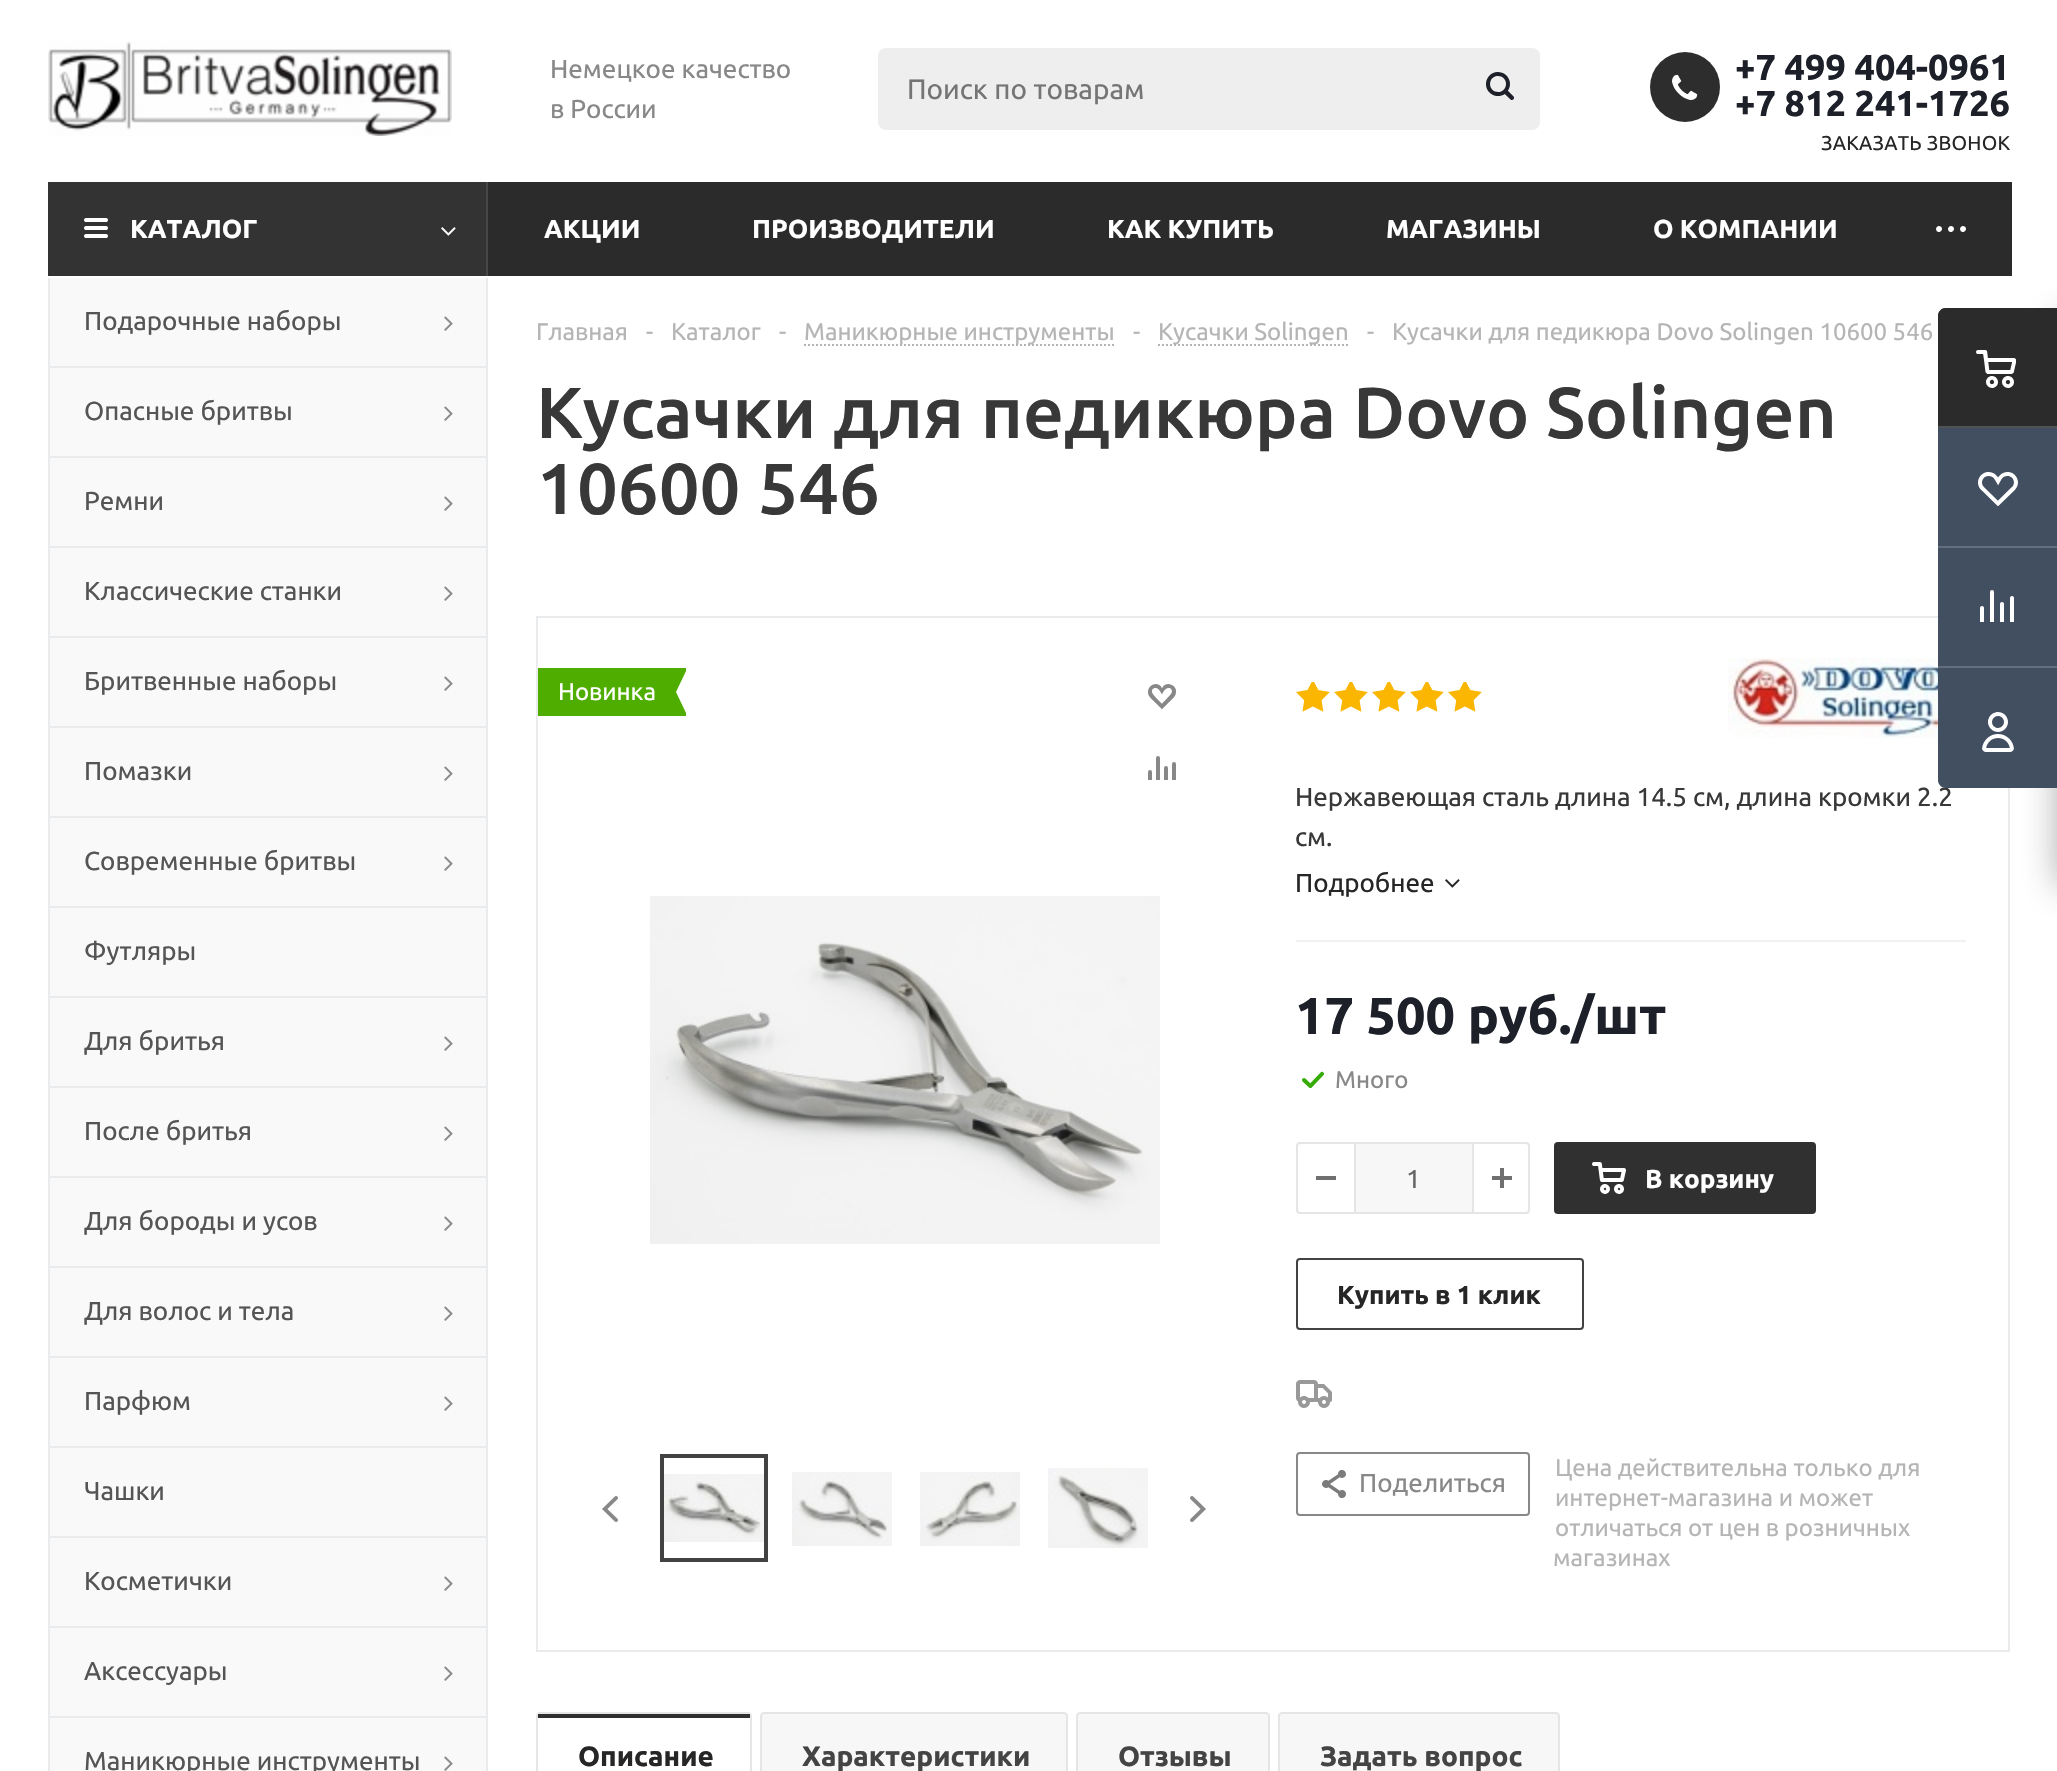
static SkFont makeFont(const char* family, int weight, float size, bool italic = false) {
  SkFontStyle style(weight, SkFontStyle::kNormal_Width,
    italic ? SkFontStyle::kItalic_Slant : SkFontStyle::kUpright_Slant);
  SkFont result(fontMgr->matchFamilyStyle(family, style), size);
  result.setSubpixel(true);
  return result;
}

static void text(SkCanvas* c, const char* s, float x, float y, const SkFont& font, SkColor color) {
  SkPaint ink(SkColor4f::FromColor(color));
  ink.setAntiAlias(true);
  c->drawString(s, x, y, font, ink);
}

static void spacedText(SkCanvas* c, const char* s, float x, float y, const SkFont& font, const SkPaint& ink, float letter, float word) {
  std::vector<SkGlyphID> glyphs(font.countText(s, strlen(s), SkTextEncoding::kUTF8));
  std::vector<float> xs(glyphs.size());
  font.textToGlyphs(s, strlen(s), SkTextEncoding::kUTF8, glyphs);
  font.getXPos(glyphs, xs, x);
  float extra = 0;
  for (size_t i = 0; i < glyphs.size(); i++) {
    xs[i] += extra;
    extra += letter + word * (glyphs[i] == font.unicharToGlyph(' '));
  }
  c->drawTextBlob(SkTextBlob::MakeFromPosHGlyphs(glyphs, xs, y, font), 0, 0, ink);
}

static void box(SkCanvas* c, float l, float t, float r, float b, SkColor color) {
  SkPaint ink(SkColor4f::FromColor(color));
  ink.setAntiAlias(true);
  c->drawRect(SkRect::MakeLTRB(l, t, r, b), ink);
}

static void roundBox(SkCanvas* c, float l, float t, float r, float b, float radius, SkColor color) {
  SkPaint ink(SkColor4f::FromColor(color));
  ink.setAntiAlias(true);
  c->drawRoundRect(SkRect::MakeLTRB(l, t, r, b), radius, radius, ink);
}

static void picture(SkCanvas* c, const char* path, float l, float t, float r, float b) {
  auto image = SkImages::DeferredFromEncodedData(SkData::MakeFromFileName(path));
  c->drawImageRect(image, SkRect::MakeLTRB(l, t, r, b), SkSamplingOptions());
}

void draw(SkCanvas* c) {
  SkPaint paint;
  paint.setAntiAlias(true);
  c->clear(0xffffffff);
  picture(c, "img_01.png", 48, 41, 452, 136);
  SkFont face1 = makeFont("Ubuntu", 400, 26);
  text(c, "Немецкое качество", 550, 78, face1, 0xff888888);
  text(c, "в России", 550, 118, face1, 0xff888888);
  roundBox(c, 878, 48, 1540, 130, 8, 0xffeeeeee);
  SkFont face2 = makeFont("Ubuntu", 400, 28);
  text(c, "Поиск по товарам", 907, 99, face2, 0xff757575);
  picture(c, "img_02.png", 1486, 72, 1514, 100);
  paint.setColor(0xff2e2d2d);
  c->drawCircle(1685, 87, 35, paint);
  picture(c, "img_03.png", 1672, 74, 1698, 100);
  SkFont face3 = makeFont("Ubuntu", 700, 36);
  text(c, "+7 499 404-0961", 1735, 80, face3, 0xff1d2029);
  text(c, "+7 812 241-1726", 1735, 116, face3, 0xff1d2029);
  SkFont face4 = makeFont("Ubuntu", 400, 20);
  paint.setColor(0xff272626);
  spacedText(c, "ЗАКАЗАТЬ ЗВОНОК", 1821, 150, face4, paint, 0.25f, 0);
  box(c, 488, 182, 2012, 276, 0xff2b2b2b);
  paint.setStyle(SkPaint::kStroke_Style);
  paint.setStrokeWidth(2);
  paint.setColor(0xffeaebec);
  c->drawRect(SkRect::MakeLTRB(537, 617, 2009, 1651), paint);
  paint.setStyle(SkPaint::kFill_Style);
  paint.setColor(0x662c2c2c);
  paint.setMaskFilter(SkMaskFilter::MakeBlur(kNormal_SkBlurStyle, 18));
  c->drawRoundRect(SkRect::MakeLTRB(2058, 320, 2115, 886), 4, 4, paint);
  paint.setMaskFilter(nullptr);
  text(c, "Нержавеющая сталь длина 14.5 см, длина кромки 2.2", 1295, 806, face1, 0xff383838);
  paint.setColor(0xff424f60);
  c->drawPath(SkPathBuilder().moveTo(1946, 308).lineTo(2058, 308).lineTo(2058, 788).lineTo(1946, 788).cubicTo(1941.5f, 788, 1938, 784.5f, 1938, 780).lineTo(1938, 316).cubicTo(1938, 311.5f, 1941.5f, 308, 1946, 308).close().detach(), paint);
  paint.setColor(0xff2c2b2b);
  c->drawPath(SkPathBuilder().moveTo(1946, 308).lineTo(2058, 308).lineTo(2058, 428).lineTo(1938, 428).lineTo(1938, 316).cubicTo(1938, 311.5f, 1941.5f, 308, 1946, 308).close().detach(), paint);
  picture(c, "img_04.png", 1976, 350, 2016, 388);
  box(c, 1938, 426, 2057, 428, 0xff515253);
  picture(c, "img_05.png", 1978, 472, 2018, 506);
  box(c, 1938, 546, 2057, 548, 0xff636f7d);
  picture(c, "img_06.png", 1980, 590, 2014, 622);
  box(c, 1938, 666, 2057, 668, 0xff636f7d);
  picture(c, "img_07.png", 1982, 712, 2014, 752);
  box(c, 48, 182, 486, 276, 0xff333333);
  picture(c, "img_08.png", 84, 218, 108, 238);
  SkFont face5 = makeFont("Ubuntu", 700, 26);
  text(c, "КАТАЛОГ", 130, 238, face5, 0xffffffff);
  box(c, 486, 182, 488, 276, 0xff474747);
  picture(c, "img_09.png", 441, 227, 456, 236);
  text(c, "АКЦИИ", 544, 238, face5, 0xffffffff);
  text(c, "ПРОИЗВОДИТЕЛИ", 752, 238, face5, 0xffffffff);
  text(c, "КАК КУПИТЬ", 1107, 238, face5, 0xffffffff);
  text(c, "МАГАЗИНЫ", 1386, 238, face5, 0xffffffff);
  text(c, "О КОМПАНИИ", 1653, 238, face5, 0xffffffff);
  picture(c, "img_10.png", 1936, 226, 1966, 232);
  box(c, 50, 278, 486, 366, 0xfff9f9f9);
  box(c, 486, 278, 488, 366, 0xffeaebec);
  box(c, 48, 278, 50, 366, 0xffeaebec);
  text(c, "Подарочные наборы", 84, 330, face1, 0xff555555);
  picture(c, "img_11.png", 444, 316, 453, 331);
  box(c, 50, 368, 486, 456, 0xfff9f9f9);
  box(c, 48, 366, 488, 368, 0xffeaebec);
  box(c, 486, 366, 488, 456, 0xffeaebec);
  box(c, 48, 366, 50, 456, 0xffeaebec);
  text(c, "Опасные бритвы", 84, 420, face1, 0xff555555);
  picture(c, "img_11.png", 444, 406, 453, 421);
  box(c, 50, 458, 486, 546, 0xfff9f9f9);
  box(c, 48, 456, 488, 458, 0xffeaebec);
  box(c, 486, 456, 488, 546, 0xffeaebec);
  box(c, 48, 456, 50, 546, 0xffeaebec);
  text(c, "Ремни", 84, 510, face1, 0xff555555);
  picture(c, "img_11.png", 444, 496, 453, 511);
  box(c, 50, 548, 486, 636, 0xfff9f9f9);
  box(c, 48, 546, 488, 548, 0xffeaebec);
  box(c, 486, 546, 488, 636, 0xffeaebec);
  box(c, 48, 546, 50, 636, 0xffeaebec);
  text(c, "Классические станки", 84, 600, face1, 0xff555555);
  picture(c, "img_11.png", 444, 586, 453, 601);
  box(c, 50, 638, 486, 726, 0xfff9f9f9);
  box(c, 48, 636, 488, 638, 0xffeaebec);
  box(c, 486, 636, 488, 726, 0xffeaebec);
  box(c, 48, 636, 50, 726, 0xffeaebec);
  text(c, "Бритвенные наборы", 84, 690, face1, 0xff555555);
  picture(c, "img_11.png", 444, 676, 453, 691);
  box(c, 50, 728, 486, 816, 0xfff9f9f9);
  box(c, 48, 726, 488, 728, 0xffeaebec);
  box(c, 486, 726, 488, 816, 0xffeaebec);
  box(c, 48, 726, 50, 816, 0xffeaebec);
  text(c, "Помазки", 84, 780, face1, 0xff555555);
  picture(c, "img_11.png", 444, 766, 453, 781);
  box(c, 50, 818, 486, 906, 0xfff9f9f9);
  box(c, 48, 816, 488, 818, 0xffeaebec);
  box(c, 486, 816, 488, 906, 0xffeaebec);
  box(c, 48, 816, 50, 906, 0xffeaebec);
  text(c, "Современные бритвы", 84, 870, face1, 0xff555555);
  picture(c, "img_11.png", 444, 856, 453, 871);
  box(c, 50, 908, 486, 996, 0xfff9f9f9);
  box(c, 48, 906, 488, 908, 0xffeaebec);
  box(c, 486, 906, 488, 996, 0xffeaebec);
  box(c, 48, 906, 50, 996, 0xffeaebec);
  text(c, "Футляры", 84, 960, face1, 0xff555555);
  box(c, 50, 998, 486, 1086, 0xfff9f9f9);
  box(c, 48, 996, 488, 998, 0xffeaebec);
  box(c, 486, 996, 488, 1086, 0xffeaebec);
  box(c, 48, 996, 50, 1086, 0xffeaebec);
  text(c, "Для бритья", 84, 1050, face1, 0xff555555);
  picture(c, "img_11.png", 444, 1036, 453, 1051);
  box(c, 50, 1088, 486, 1176, 0xfff9f9f9);
  box(c, 48, 1086, 488, 1088, 0xffeaebec);
  box(c, 486, 1086, 488, 1176, 0xffeaebec);
  box(c, 48, 1086, 50, 1176, 0xffeaebec);
  text(c, "После бритья", 84, 1140, face1, 0xff555555);
  picture(c, "img_11.png", 444, 1126, 453, 1141);
  box(c, 50, 1178, 486, 1266, 0xfff9f9f9);
  box(c, 48, 1176, 488, 1178, 0xffeaebec);
  box(c, 486, 1176, 488, 1266, 0xffeaebec);
  box(c, 48, 1176, 50, 1266, 0xffeaebec);
  text(c, "Для бороды и усов", 84, 1230, face1, 0xff555555);
  picture(c, "img_11.png", 444, 1216, 453, 1231);
  box(c, 50, 1268, 486, 1356, 0xfff9f9f9);
  box(c, 48, 1266, 488, 1268, 0xffeaebec);
  box(c, 486, 1266, 488, 1356, 0xffeaebec);
  box(c, 48, 1266, 50, 1356, 0xffeaebec);
  text(c, "Для волос и тела", 84, 1320, face1, 0xff555555);
  picture(c, "img_11.png", 444, 1306, 453, 1321);
  box(c, 50, 1358, 486, 1446, 0xfff9f9f9);
  box(c, 48, 1356, 488, 1358, 0xffeaebec);
  box(c, 486, 1356, 488, 1446, 0xffeaebec);
  box(c, 48, 1356, 50, 1446, 0xffeaebec);
  text(c, "Парфюм", 84, 1410, face1, 0xff555555);
  picture(c, "img_11.png", 444, 1396, 453, 1411);
  box(c, 50, 1448, 486, 1536, 0xfff9f9f9);
  box(c, 48, 1446, 488, 1448, 0xffeaebec);
  box(c, 486, 1446, 488, 1536, 0xffeaebec);
  box(c, 48, 1446, 50, 1536, 0xffeaebec);
  text(c, "Чашки", 84, 1500, face1, 0xff555555);
  box(c, 50, 1538, 486, 1626, 0xfff9f9f9);
  box(c, 48, 1536, 488, 1538, 0xffeaebec);
  box(c, 486, 1536, 488, 1626, 0xffeaebec);
  box(c, 48, 1536, 50, 1626, 0xffeaebec);
  text(c, "Косметички", 84, 1590, face1, 0xff555555);
  picture(c, "img_11.png", 444, 1576, 453, 1591);
  box(c, 50, 1628, 486, 1716, 0xfff9f9f9);
  box(c, 48, 1626, 488, 1628, 0xffeaebec);
  box(c, 486, 1626, 488, 1716, 0xffeaebec);
  box(c, 48, 1626, 50, 1716, 0xffeaebec);
  text(c, "Аксессуары", 84, 1680, face1, 0xff555555);
  picture(c, "img_11.png", 444, 1666, 453, 1681);
  paint.setColor(0xfff9f9f9);
  c->drawRect(SkRect::MakeLTRB(49, 1717, 487, 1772), paint);
  paint.setStyle(SkPaint::kStroke_Style);
  paint.setColor(0xffeaebec);
  c->drawRect(SkRect::MakeLTRB(49, 1717, 487, 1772), paint);
  text(c, "Маникюрные инструменты", 84, 1770, face1, 0xff555555);
  picture(c, "img_11.png", 444, 1756, 453, 1771);
  SkFont face6 = makeFont("Ubuntu", 400, 24);
  text(c, "Главная", 536, 340, face6, 0xffb6b5b5);
  text(c, "-", 646, 340, face6, 0xffb6b5b5);
  text(c, "Каталог", 671, 340, face6, 0xffb6b5b5);
  text(c, "-", 779, 340, face6, 0xffb6b5b5);
  paint.setColor(0xffb4b4b4);
  paint.setPathEffect(SkDashPathEffect::Make({{2, 2}}, 0));
  c->drawPath(SkPathBuilder().moveTo(804, 345).lineTo(1114, 345).detach(), paint);
  paint.setPathEffect(nullptr);
  text(c, "Маникюрные инструменты", 804, 340, face6, 0xffb6b5b5);
  text(c, "-", 1133, 340, face6, 0xffb6b5b5);
  paint.setPathEffect(SkDashPathEffect::Make({{2, 2}}, 0));
  c->drawPath(SkPathBuilder().moveTo(1158, 345).lineTo(1348, 345).detach(), paint);
  paint.setPathEffect(nullptr);
  text(c, "Кусачки Solingen", 1158, 340, face6, 0xffb6b5b5);
  text(c, "-", 1367, 340, face6, 0xffb6b5b5);
  text(c, "Кусачки для педикюра Dovo Solingen 10600 546", 1392, 340, face6, 0xffb6b5b5);
  SkFont face7 = makeFont("Ubuntu", 500, 72);
  text(c, "Кусачки для педикюра Dovo Solingen", 536, 438, face7, 0xff383838);
  text(c, "10600 546", 536, 514, face7, 0xff383838);
  box(c, 538, 668, 676, 716, 0xff4fad00);
  text(c, "Новинка", 558, 700, face6, 0xffffffff);
  picture(c, "img_12.png", 676, 668, 686, 716);
  picture(c, "img_13.png", 1148, 684, 1176, 709);
  picture(c, "img_14.png", 1130, 756, 1176, 780);
  picture(c, "img_15.png", 650, 896, 1160, 1244);
  paint.setStrokeWidth(4);
  paint.setColor(0xff424242);
  c->drawRect(SkRect::MakeLTRB(662, 1456, 766, 1560), paint);
  picture(c, "img_16.png", 664, 1474, 764, 1542);
  picture(c, "img_17.png", 792, 1472, 892, 1546);
  picture(c, "img_18.png", 920, 1472, 1020, 1546);
  picture(c, "img_19.png", 1048, 1468, 1148, 1548);
  picture(c, "img_20.png", 602, 1496, 618, 1522);
  picture(c, "img_21.png", 1190, 1496, 1206, 1522);
  box(c, 1296, 940, 1966, 942, 0xfff2f2f2);
  picture(c, "img_22.png", 1296, 682, 1330, 712);
  picture(c, "img_22.png", 1334, 682, 1368, 712);
  picture(c, "img_22.png", 1372, 682, 1406, 712);
  picture(c, "img_22.png", 1410, 682, 1444, 712);
  picture(c, "img_22.png", 1448, 682, 1482, 712);
  picture(c, "img_23.png", 1728, 658, 1938, 738);
  text(c, "см.", 1295, 846, face1, 0xff383838);
  text(c, "Подробнее", 1295, 892, face1, 0xff272626);
  picture(c, "img_24.png", 1445, 879, 1460, 888);
  SkFont face8 = makeFont("Ubuntu", 700, 52);
  text(c, "17 500 руб./шт", 1295, 1034, face8, 0xff1d2029);
  picture(c, "img_25.png", 1302, 1071, 1324, 1088);
  text(c, "Много", 1335, 1088, face6, 0xff888888);
  paint.setStrokeWidth(2);
  paint.setColor(0xffe5e5e5);
  c->drawRoundRect(SkRect::MakeLTRB(1297, 1143, 1529, 1213), 3, 3, paint);
  box(c, 1316, 1176, 1336, 1180, 0xff707070);
  box(c, 1356, 1144, 1472, 1212, 0xfff7f7f7);
  box(c, 1472, 1144, 1474, 1212, 0xffe5e5e5);
  box(c, 1354, 1144, 1356, 1212, 0xffe5e5e5);
  text(c, "1", 1406, 1188, face1, 0xff666666);
  picture(c, "img_26.png", 1492, 1168, 1512, 1188);
  roundBox(c, 1554, 1142, 1816, 1214, 4, 0xff313030);
  picture(c, "img_27.png", 1592, 1162, 1626, 1194);
  text(c, "В корзину", 1645, 1188, face5, 0xffffffff);
  paint.setColor(0xff424242);
  c->drawRoundRect(SkRect::MakeLTRB(1297, 1259, 1583, 1329), 3, 3, paint);
  text(c, "Купить в 1 клик", 1337, 1304, face5, 0xff272626);
  picture(c, "img_28.png", 1296, 1380, 1332, 1408);
  paint.setColor(0xff888888);
  c->drawRoundRect(SkRect::MakeLTRB(1297, 1453, 1529, 1515), 3, 3, paint);
  picture(c, "img_29.png", 1322, 1470, 1346, 1498);
  text(c, "Поделиться", 1359, 1492, face1, 0xff888888);
  text(c, "Цена действительна только для", 1555, 1476, face6, 0xffb6b5b5);
  text(c, "интернет-магазина и может", 1555, 1506, face6, 0xffb6b5b5);
  text(c, "отличаться от цен в розничных", 1555, 1536, face6, 0xffb6b5b5);
  text(c, "магазинах", 1553, 1566, face6, 0xffb6b5b5);
  paint.setColor(0xffe5e5e5);
  c->drawPath(SkPathBuilder().moveTo(540, 1713).lineTo(748, 1713).cubicTo(749.5f, 1713, 751, 1714.5f, 751, 1716).lineTo(751, 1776).lineTo(537, 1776).lineTo(537, 1716).cubicTo(537, 1714.5f, 538.5f, 1713, 540, 1713).close().detach(), paint);
  box(c, 538, 1714, 750, 1718, 0xff313030);
  SkFont face9 = makeFont("Ubuntu", 700, 28);
  text(c, "Описание", 578, 1766, face9, 0xff272626);
  paint.setStyle(SkPaint::kFill_Style);
  paint.setColor(0xfff7f7f7);
  c->drawPath(SkPathBuilder().moveTo(764, 1713).lineTo(1064, 1713).cubicTo(1065.5f, 1713, 1067, 1714.5f, 1067, 1716).lineTo(1067, 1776).lineTo(761, 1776).lineTo(761, 1716).cubicTo(761, 1714.5f, 762.5f, 1713, 764, 1713).close().detach(), paint);
  paint.setStyle(SkPaint::kStroke_Style);
  paint.setColor(0xffe5e5e5);
  c->drawPath(SkPathBuilder().moveTo(764, 1713).lineTo(1064, 1713).cubicTo(1065.5f, 1713, 1067, 1714.5f, 1067, 1716).lineTo(1067, 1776).lineTo(761, 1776).lineTo(761, 1716).cubicTo(761, 1714.5f, 762.5f, 1713, 764, 1713).close().detach(), paint);
  text(c, "Характеристики", 802, 1766, face9, 0xff444444);
  paint.setStyle(SkPaint::kFill_Style);
  paint.setColor(0xfff7f7f7);
  c->drawPath(SkPathBuilder().moveTo(1080, 1713).lineTo(1266, 1713).cubicTo(1267.5f, 1713, 1269, 1714.5f, 1269, 1716).lineTo(1269, 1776).lineTo(1077, 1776).lineTo(1077, 1716).cubicTo(1077, 1714.5f, 1078.5f, 1713, 1080, 1713).close().detach(), paint);
  paint.setStyle(SkPaint::kStroke_Style);
  paint.setColor(0xffe5e5e5);
  c->drawPath(SkPathBuilder().moveTo(1080, 1713).lineTo(1266, 1713).cubicTo(1267.5f, 1713, 1269, 1714.5f, 1269, 1716).lineTo(1269, 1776).lineTo(1077, 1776).lineTo(1077, 1716).cubicTo(1077, 1714.5f, 1078.5f, 1713, 1080, 1713).close().detach(), paint);
  text(c, "Отзывы", 1118, 1766, face9, 0xff444444);
  paint.setStyle(SkPaint::kFill_Style);
  paint.setColor(0xfff7f7f7);
  c->drawPath(SkPathBuilder().moveTo(1282, 1713).lineTo(1556, 1713).cubicTo(1557.5f, 1713, 1559, 1714.5f, 1559, 1716).lineTo(1559, 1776).lineTo(1279, 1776).lineTo(1279, 1716).cubicTo(1279, 1714.5f, 1280.5f, 1713, 1282, 1713).close().detach(), paint);
  paint.setStyle(SkPaint::kStroke_Style);
  paint.setColor(0xffe5e5e5);
  c->drawPath(SkPathBuilder().moveTo(1282, 1713).lineTo(1556, 1713).cubicTo(1557.5f, 1713, 1559, 1714.5f, 1559, 1716).lineTo(1559, 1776).lineTo(1279, 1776).lineTo(1279, 1716).cubicTo(1279, 1714.5f, 1280.5f, 1713, 1282, 1713).close().detach(), paint);
  text(c, "Задать вопрос", 1320, 1766, face9, 0xff444444);
}
